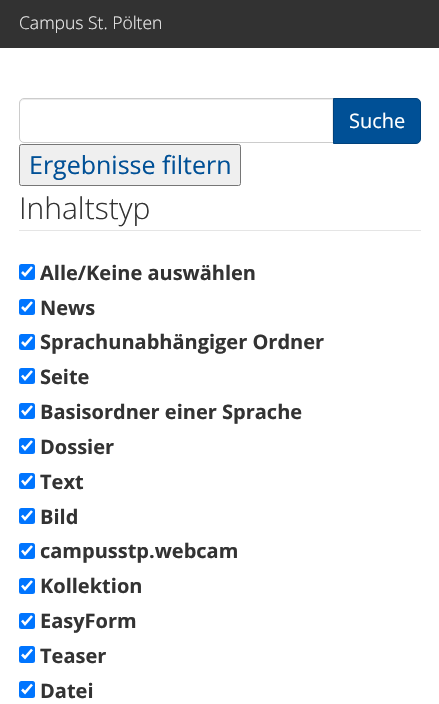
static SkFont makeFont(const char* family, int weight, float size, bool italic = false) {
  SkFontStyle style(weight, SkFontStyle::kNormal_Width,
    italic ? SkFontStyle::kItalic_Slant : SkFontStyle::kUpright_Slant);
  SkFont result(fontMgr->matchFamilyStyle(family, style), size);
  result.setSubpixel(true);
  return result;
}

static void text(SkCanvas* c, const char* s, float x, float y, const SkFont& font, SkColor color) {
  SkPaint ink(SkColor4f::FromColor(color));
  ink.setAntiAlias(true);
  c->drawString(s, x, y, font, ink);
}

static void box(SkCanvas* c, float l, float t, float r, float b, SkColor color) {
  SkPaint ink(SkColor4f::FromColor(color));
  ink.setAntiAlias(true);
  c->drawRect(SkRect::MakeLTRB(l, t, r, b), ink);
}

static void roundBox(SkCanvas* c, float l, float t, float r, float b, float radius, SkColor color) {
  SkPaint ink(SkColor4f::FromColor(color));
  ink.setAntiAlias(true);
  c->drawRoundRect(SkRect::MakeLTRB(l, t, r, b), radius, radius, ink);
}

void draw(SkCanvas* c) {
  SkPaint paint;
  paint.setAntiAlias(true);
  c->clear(0xffffffff);
  box(c, 0, 0, 439, 48, 0xff323232);
  SkFont face1 = makeFont("Open Sans", 300, 17.5f);
  text(c, "Campus St. Pölten", 19, 29, face1, 0xffececec);
  paint.setColor(0xffececec);
  c->drawPath(SkPathBuilder().moveTo(24, 100).lineTo(332, 100).lineTo(332, 141).lineTo(333, 141).lineTo(333, 99).lineTo(24, 99).cubicTo(22, 99, 20, 101, 20, 103).lineTo(20, 104).cubicTo(20, 102, 22, 100, 24, 100).close().detach(), paint);
  paint.setStyle(SkPaint::kStroke_Style);
  paint.setStrokeWidth(1);
  paint.setColor(0xffcccccc);
  c->drawPath(SkPathBuilder().moveTo(24, 98.5f).lineTo(333.5f, 98.5f).lineTo(333.5f, 142.5f).lineTo(24, 142.5f).cubicTo(21.5f, 142.5f, 19.5f, 140.5f, 19.5f, 138).lineTo(19.5f, 103).cubicTo(19.5f, 100.5f, 21.5f, 98.5f, 24, 98.5f).close().detach(), paint);
  paint.setStyle(SkPaint::kFill_Style);
  paint.setColor(0xff005096);
  c->drawPath(SkPathBuilder().moveTo(333.5f, 98.5f).lineTo(416, 98.5f).cubicTo(418.5f, 98.5f, 420.5f, 100.5f, 420.5f, 103).lineTo(420.5f, 139).cubicTo(420.5f, 141.5f, 418.5f, 143.5f, 416, 143.5f).lineTo(333.5f, 143.5f).close().detach(), paint);
  paint.setStyle(SkPaint::kStroke_Style);
  paint.setColor(0xff00427d);
  c->drawPath(SkPathBuilder().moveTo(333.5f, 98.5f).lineTo(416, 98.5f).cubicTo(418.5f, 98.5f, 420.5f, 100.5f, 420.5f, 103).lineTo(420.5f, 139).cubicTo(420.5f, 141.5f, 418.5f, 143.5f, 416, 143.5f).lineTo(333.5f, 143.5f).close().detach(), paint);
  SkFont face2 = makeFont("Open Sans", 400, 20);
  text(c, "Suche", 349, 128, face2, 0xffffffff);
  paint.setStyle(SkPaint::kFill_Style);
  paint.setColor(0xffefefef);
  c->drawRoundRect(SkRect::MakeLTRB(19.5f, 144.5f, 240.5f, 185.5f), 2, 2, paint);
  paint.setStyle(SkPaint::kStroke_Style);
  paint.setColor(0xff767676);
  c->drawRoundRect(SkRect::MakeLTRB(19.5f, 144.5f, 240.5f, 185.5f), 2, 2, paint);
  SkFont face3 = makeFont("Open Sans", 400, 25);
  text(c, "Ergebnisse filtern", 29, 174, face3, 0xff005096);
  box(c, 19, 230, 421, 231, 0xffe5e5e5);
  SkFont face4 = makeFont("Open Sans", 300, 30);
  text(c, "Inhaltstyp", 19, 219, face4, 0xff333333);
  roundBox(c, 19, 264, 35, 280, 2.5f, 0xff0075ff);
  paint.setStrokeWidth(2.6f);
  paint.setColor(0xffffffff);
  c->drawPath(SkPathBuilder().moveTo(22, 272).lineTo(25, 275).lineTo(32, 267).detach(), paint);
  SkFont face5 = makeFont("Open Sans", 700, 20);
  text(c, "Alle/Keine auswählen", 40, 280, face5, 0xff333333);
  roundBox(c, 19, 299, 35, 315, 2.5f, 0xff0075ff);
  c->drawPath(SkPathBuilder().moveTo(22, 307).lineTo(25, 310).lineTo(32, 302).detach(), paint);
  text(c, "News", 40, 315, face5, 0xff333333);
  roundBox(c, 19, 334, 35, 350, 2.5f, 0xff0075ff);
  c->drawPath(SkPathBuilder().moveTo(22, 342).lineTo(25, 345).lineTo(32, 337).detach(), paint);
  text(c, "Sprachunabhängiger Ordner", 40, 349, face5, 0xff333333);
  roundBox(c, 19, 368, 35, 384, 2.5f, 0xff0075ff);
  c->drawPath(SkPathBuilder().moveTo(22, 375.5f).lineTo(25, 379).lineTo(32, 371).detach(), paint);
  text(c, "Seite", 40, 384, face5, 0xff333333);
  roundBox(c, 19, 403, 35, 419, 2.5f, 0xff0075ff);
  c->drawPath(SkPathBuilder().moveTo(22, 410.5f).lineTo(25, 414).lineTo(32, 406).detach(), paint);
  text(c, "Basisordner einer Sprache", 40, 419, face5, 0xff333333);
  roundBox(c, 19, 438, 35, 454, 2.5f, 0xff0075ff);
  c->drawPath(SkPathBuilder().moveTo(22, 445.5f).lineTo(25, 449).lineTo(32, 441).detach(), paint);
  text(c, "Dossier", 40, 454, face5, 0xff333333);
  roundBox(c, 19, 473, 35, 489, 2.5f, 0xff0075ff);
  c->drawPath(SkPathBuilder().moveTo(22, 480.5f).lineTo(25, 484).lineTo(32, 476).detach(), paint);
  text(c, "Text", 40, 489, face5, 0xff333333);
  roundBox(c, 19, 508, 35, 524, 2.5f, 0xff0075ff);
  c->drawPath(SkPathBuilder().moveTo(22, 515.5f).lineTo(25, 519).lineTo(32, 511).detach(), paint);
  text(c, "Bild", 40, 524, face5, 0xff333333);
  roundBox(c, 19, 543, 35, 559, 2.5f, 0xff0075ff);
  c->drawPath(SkPathBuilder().moveTo(22, 550.5f).lineTo(25, 554).lineTo(32, 546).detach(), paint);
  text(c, "campusstp.webcam", 40, 558, face5, 0xff333333);
  roundBox(c, 19, 578, 35, 594, 2.5f, 0xff0075ff);
  c->drawPath(SkPathBuilder().moveTo(22, 585.5f).lineTo(25, 589).lineTo(32, 581).detach(), paint);
  text(c, "Kollektion", 40, 593, face5, 0xff333333);
  roundBox(c, 19, 613, 35, 629, 2.5f, 0xff0075ff);
  c->drawPath(SkPathBuilder().moveTo(22, 620.5f).lineTo(25, 624).lineTo(32, 616).detach(), paint);
  text(c, "EasyForm", 40, 628, face5, 0xff333333);
  roundBox(c, 19, 646, 35, 663, 2.5f, 0xff0075ff);
  c->drawPath(SkPathBuilder().moveTo(22, 654.5f).lineTo(25, 657.5f).lineTo(32, 649.5f).detach(), paint);
  text(c, "Teaser", 40, 663, face5, 0xff333333);
  roundBox(c, 19, 681, 35, 698, 2.5f, 0xff0075ff);
  c->drawPath(SkPathBuilder().moveTo(22, 689.5f).lineTo(25, 692.5f).lineTo(32, 684.5f).detach(), paint);
  text(c, "Datei", 40, 698, face5, 0xff333333);
}
